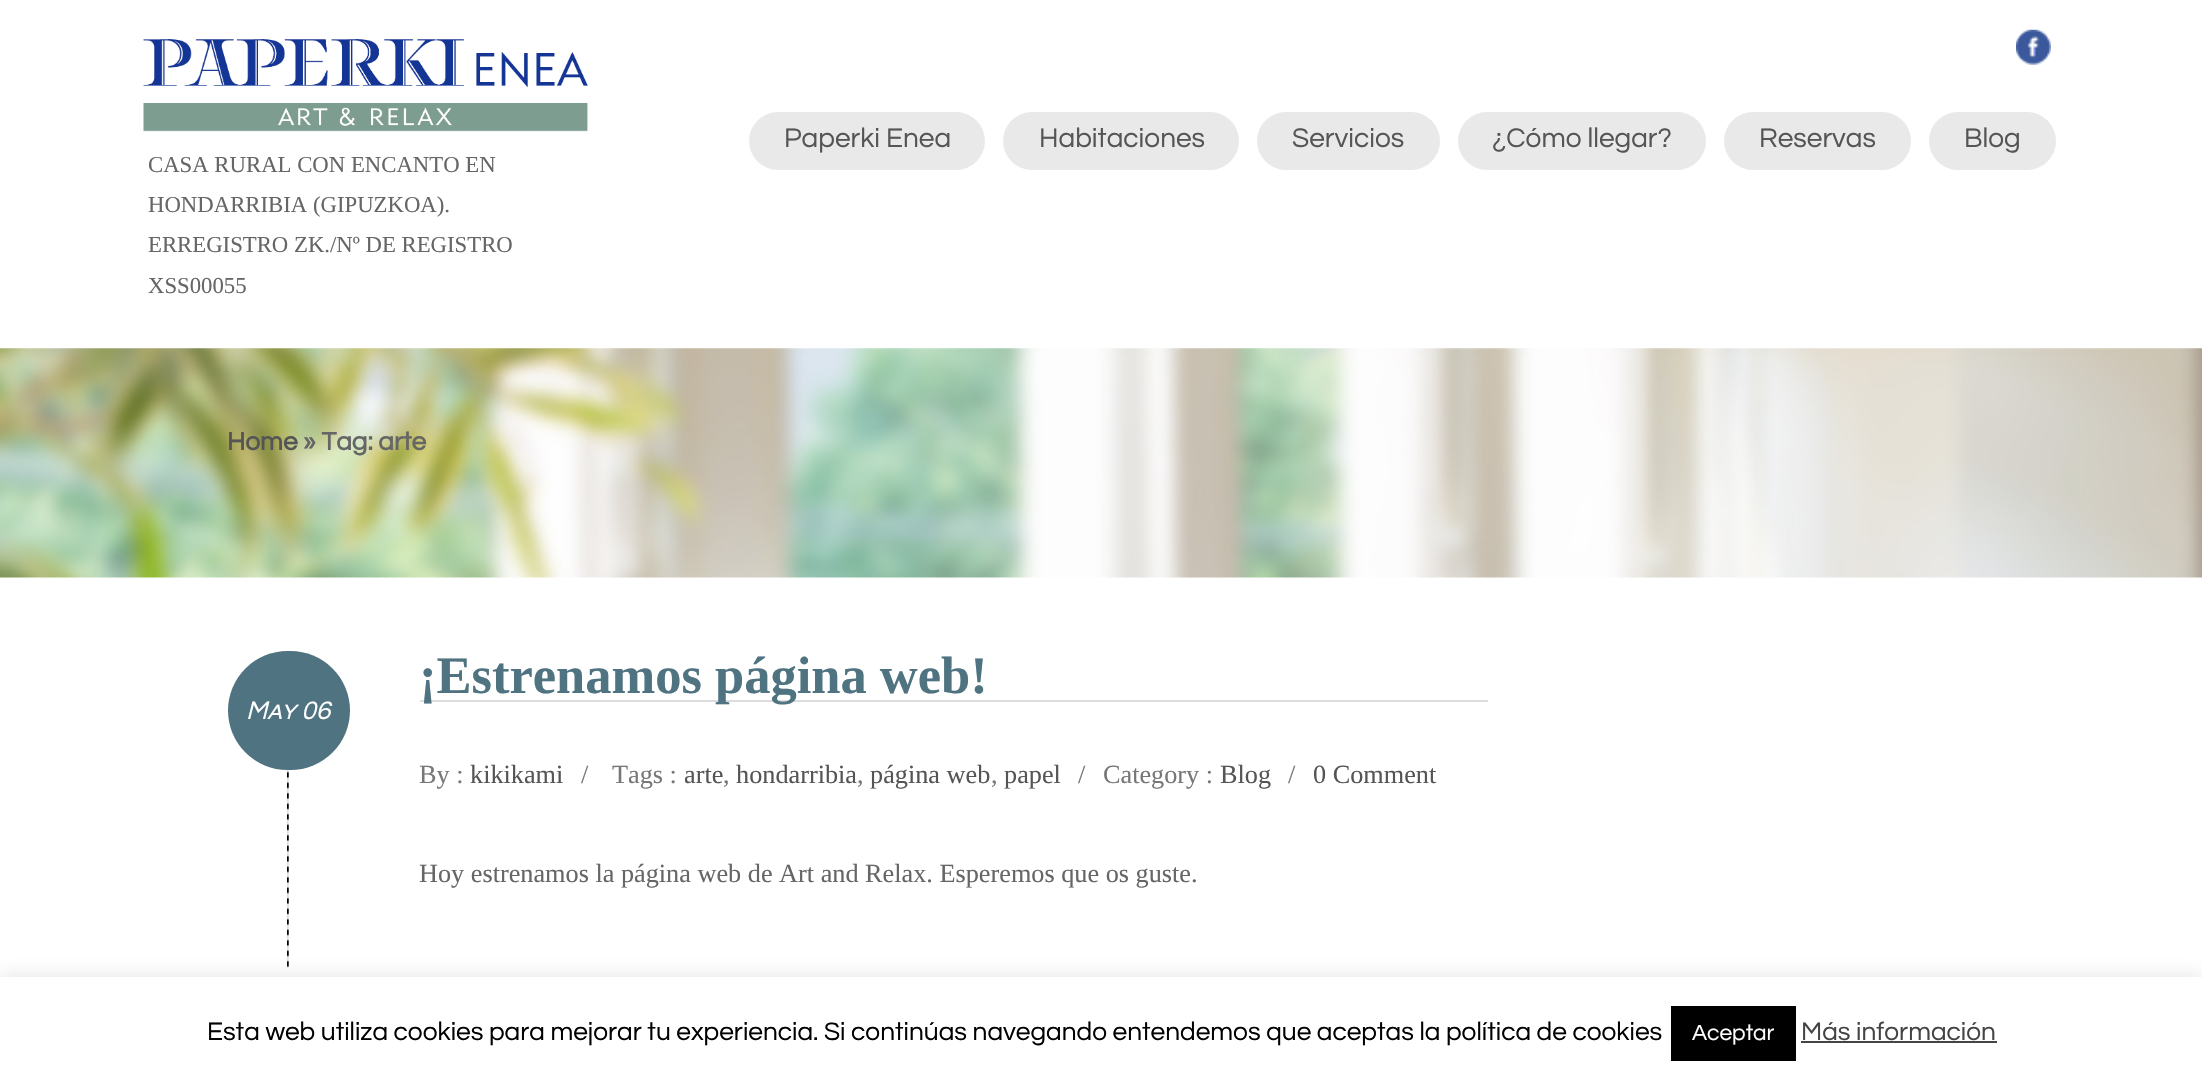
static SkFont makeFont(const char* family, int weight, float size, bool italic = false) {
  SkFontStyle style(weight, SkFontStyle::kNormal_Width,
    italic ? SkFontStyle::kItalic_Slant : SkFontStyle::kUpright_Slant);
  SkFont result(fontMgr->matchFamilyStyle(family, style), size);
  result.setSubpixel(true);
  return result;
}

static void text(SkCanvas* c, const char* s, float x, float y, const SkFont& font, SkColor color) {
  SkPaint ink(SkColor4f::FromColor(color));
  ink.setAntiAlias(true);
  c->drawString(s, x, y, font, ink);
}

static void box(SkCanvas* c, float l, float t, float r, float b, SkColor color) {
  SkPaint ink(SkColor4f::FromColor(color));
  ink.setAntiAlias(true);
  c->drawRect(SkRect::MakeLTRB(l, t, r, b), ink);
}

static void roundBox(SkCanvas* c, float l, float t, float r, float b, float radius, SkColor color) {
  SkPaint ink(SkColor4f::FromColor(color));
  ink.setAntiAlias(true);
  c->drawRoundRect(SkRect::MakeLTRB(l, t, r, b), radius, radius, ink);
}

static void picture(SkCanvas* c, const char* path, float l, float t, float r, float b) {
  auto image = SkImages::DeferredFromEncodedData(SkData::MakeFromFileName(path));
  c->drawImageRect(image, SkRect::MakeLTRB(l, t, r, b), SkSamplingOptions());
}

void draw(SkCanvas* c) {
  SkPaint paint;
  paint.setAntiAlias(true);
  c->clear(0xffffffff);
  picture(c, "img_01.png", 2016, 29, 2051, 65);
  roundBox(c, 749, 112, 985, 170, 29, 0xffe9e9e9);
  SkFont face1 = makeFont("Questrial", 400, 28);
  text(c, "Paperki Enea", 784, 147, face1, 0xff555555);
  roundBox(c, 1003, 112, 1239, 170, 29, 0xffe9e9e9);
  text(c, "Habitaciones", 1039, 147, face1, 0xff555555);
  roundBox(c, 1257, 112, 1440, 170, 29, 0xffe9e9e9);
  text(c, "Servicios", 1292, 147, face1, 0xff555555);
  roundBox(c, 1458, 112, 1706, 170, 29, 0xffe9e9e9);
  text(c, "¿Cómo llegar?", 1492, 147, face1, 0xff555555);
  roundBox(c, 1724, 112, 1911, 170, 29, 0xffe9e9e9);
  text(c, "Reservas", 1759, 147, face1, 0xff555555);
  roundBox(c, 1929, 112, 2056, 170, 29, 0xffe9e9e9);
  text(c, "Blog", 1964, 147, face1, 0xff555555);
  picture(c, "img_02.png", 143, 39, 588, 132);
  SkFont face2 = makeFont("Liberation Serif", 400, 22.75f);
  text(c, "CASA RURAL CON ENCANTO EN", 148, 172, face2, 0xff666666);
  text(c, "HONDARRIBIA (GIPUZKOA).", 148, 212, face2, 0xff666666);
  text(c, "ERREGISTRO ZK./Nº DE REGISTRO", 148, 252, face2, 0xff666666);
  text(c, "XSS00055", 148, 293, face2, 0xff666666);
  picture(c, "img_03.png", 0, 348, 2202, 578);
  SkFont face3 = makeFont("Questrial", 700, 26.25f);
  text(c, "Home", 227, 450, face3, 0xff555555);
  text(c, "» Tag: arte", 303, 450, face3, 0xff666666);
  picture(c, "img_04.png", 287, 770, 289, 968);
  roundBox(c, 228, 651, 350, 770, 59.5f, 0xff4f7381);
  SkFont face4 = makeFont("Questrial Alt", 400, 26.25f, true);
  text(c, "May 06", 246, 719, face4, 0xffffffff);
  box(c, 420, 700, 1488, 702, 0xffdddddd);
  SkFont face5 = makeFont("Liberation Serif", 700, 52.5f);
  text(c, "¡Estrenamos página web!", 419, 693, face5, 0xff4f7381);
  SkFont face6 = makeFont("Liberation Serif", 400, 26.25f);
  text(c, "By :", 419, 783, face6, 0xff777777);
  text(c, "kikikami", 470, 783, face6, 0xff555555);
  text(c, "/", 581, 783, face6, 0xff777777);
  text(c, "Tags :", 612, 783, face6, 0xff777777);
  text(c, "arte", 684, 783, face6, 0xff555555);
  text(c, ",", 723, 783, face6, 0xff777777);
  text(c, "hondarribia", 736, 783, face6, 0xff555555);
  text(c, ",", 857, 783, face6, 0xff777777);
  text(c, "página web", 870, 783, face6, 0xff555555);
  text(c, ",", 991, 783, face6, 0xff777777);
  text(c, "papel", 1004, 783, face6, 0xff555555);
  text(c, "/", 1078, 783, face6, 0xff777777);
  text(c, "Category :", 1103, 783, face6, 0xff777777);
  text(c, "Blog", 1220, 783, face6, 0xff555555);
  text(c, "/", 1288, 783, face6, 0xff777777);
  text(c, "0 Comment", 1313, 783, face6, 0xff555555);
  text(c, "Hoy estrenamos la página web de Art and Relax. Esperemos que os guste.", 419, 882, face6, 0xff666666);
  paint.setColor(0x4dacabab);
  paint.setMaskFilter(SkMaskFilter::MakeBlur(kNormal_SkBlurStyle, 9));
  c->drawRect(SkRect::MakeLTRB(0, 975, 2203, 1080), paint);
  paint.setMaskFilter(nullptr);
  box(c, 0, 977, 2202, 1081, 0xffffffff);
  SkFont face7 = makeFont("Questrial", 400, 26.25f);
  text(c, "Esta web utiliza cookies para mejorar tu experiencia. Si continúas navegando entendemos que aceptas la política de cookies", 207, 1040, face7, 0xff000000);
  box(c, 1671, 1006, 1796, 1061, 0xff000000);
  SkFont face8 = makeFont("Questrial", 400, 22.75f);
  text(c, "Aceptar", 1692, 1040, face8, 0xffffffff);
  text(c, "Más información", 1801, 1040, face7, 0xff444444);
  box(c, 1801, 1041, 1997, 1043, 0xff444444);
}
